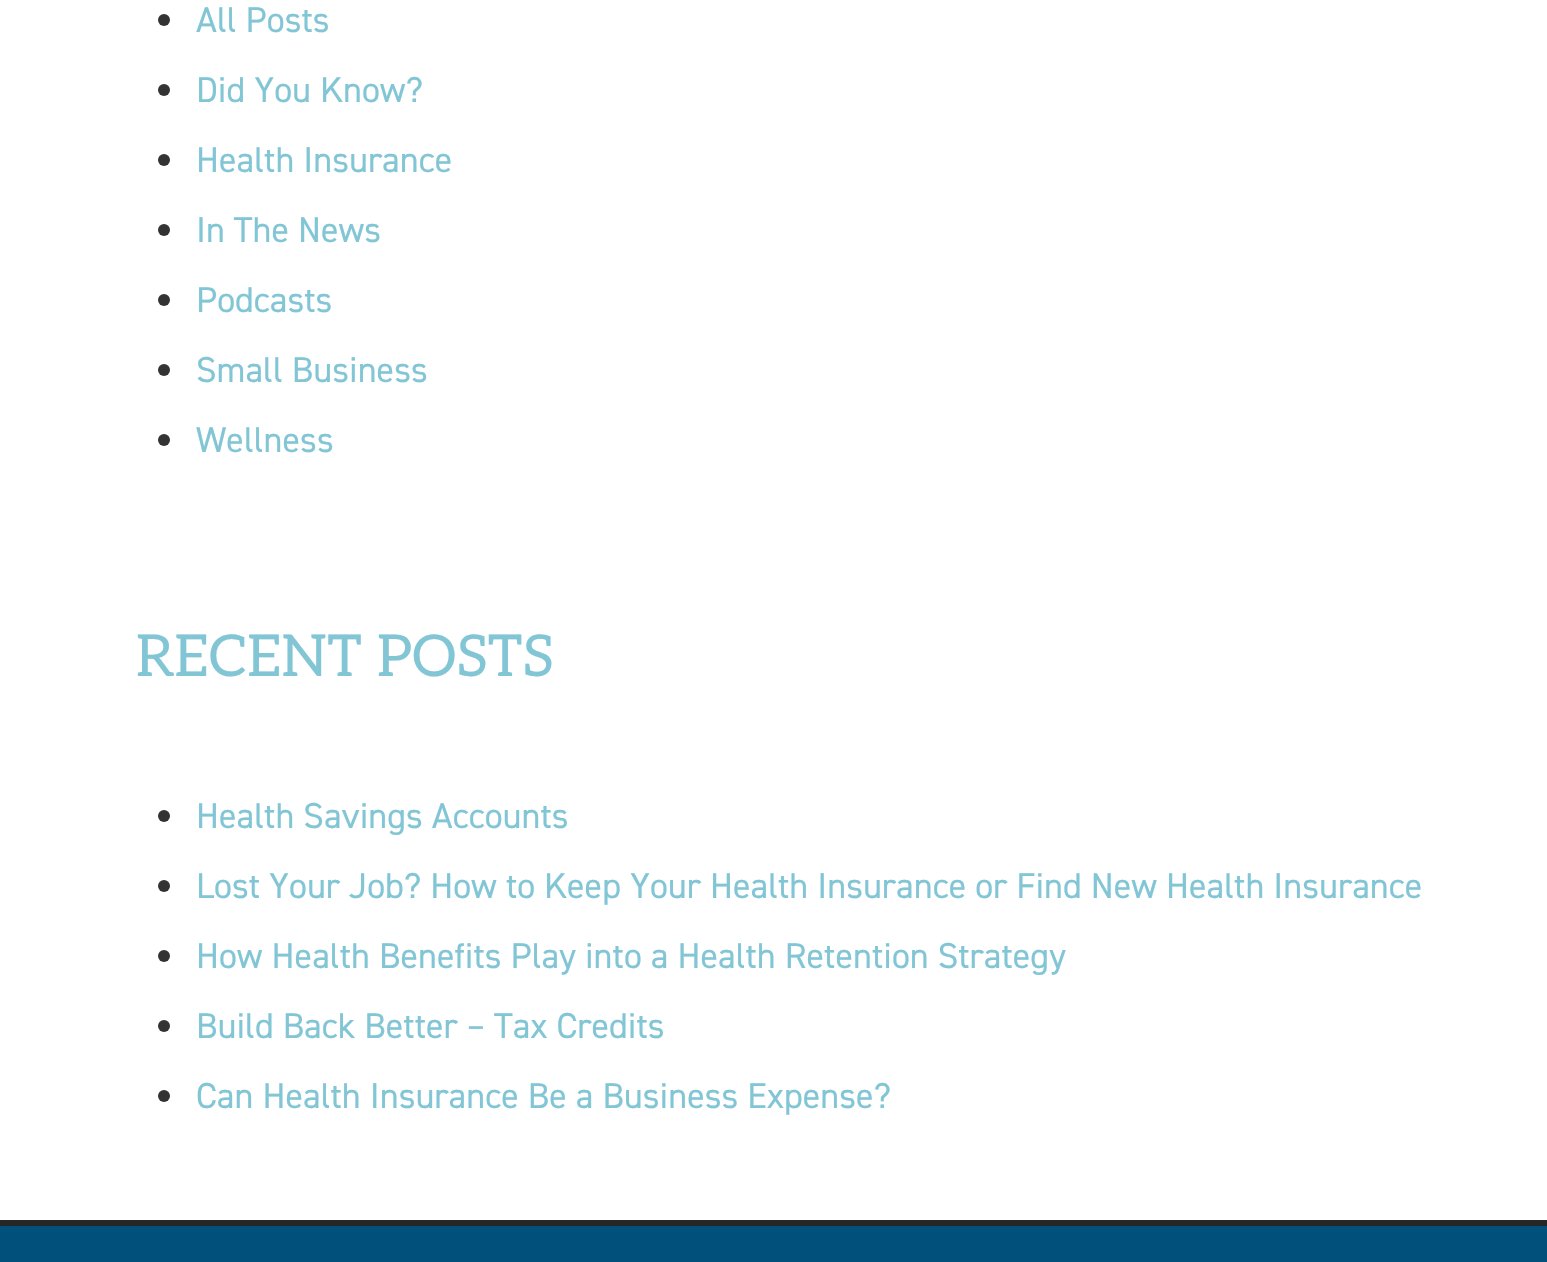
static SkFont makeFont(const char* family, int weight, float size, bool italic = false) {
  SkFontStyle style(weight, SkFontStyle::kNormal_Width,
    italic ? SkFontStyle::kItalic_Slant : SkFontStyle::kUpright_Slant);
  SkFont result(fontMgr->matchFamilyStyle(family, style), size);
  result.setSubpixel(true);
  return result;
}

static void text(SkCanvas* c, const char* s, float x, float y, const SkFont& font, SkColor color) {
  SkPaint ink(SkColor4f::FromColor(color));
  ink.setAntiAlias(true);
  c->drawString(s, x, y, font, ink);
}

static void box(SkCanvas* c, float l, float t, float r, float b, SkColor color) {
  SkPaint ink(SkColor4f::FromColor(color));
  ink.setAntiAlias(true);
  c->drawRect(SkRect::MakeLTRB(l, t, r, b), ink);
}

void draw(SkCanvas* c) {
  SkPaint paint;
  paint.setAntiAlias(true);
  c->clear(0xffffffff);
  paint.setColor(0xff333333);
  c->drawCircle(164, 20, 6, paint);
  SkFont face1 = makeFont("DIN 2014", 400, 36);
  text(c, "All Posts", 196, 32, face1, 0xff82c6d6);
  c->drawCircle(164, 90, 6, paint);
  text(c, "Did You Know?", 196, 102, face1, 0xff82c6d6);
  c->drawCircle(164, 160, 6, paint);
  text(c, "Health Insurance", 196, 172, face1, 0xff82c6d6);
  c->drawCircle(164, 230, 6, paint);
  text(c, "In The News", 196, 242, face1, 0xff82c6d6);
  c->drawCircle(164, 300, 6, paint);
  text(c, "Podcasts", 196, 312, face1, 0xff82c6d6);
  c->drawCircle(164, 370, 6, paint);
  text(c, "Small Business", 196, 382, face1, 0xff82c6d6);
  c->drawCircle(164, 440, 6, paint);
  text(c, "Wellness", 196, 452, face1, 0xff82c6d6);
  SkFont face2 = makeFont("Aleo", 400, 57.75f);
  text(c, "RECENT POSTS", 136, 676, face2, 0xff82c6d6);
  c->drawCircle(164, 816, 6, paint);
  text(c, "Health Savings Accounts", 196, 828, face1, 0xff82c6d6);
  c->drawCircle(164, 886, 6, paint);
  text(c, "Lost Your Job? How to Keep Your Health Insurance or Find New Health Insurance", 196, 898, face1, 0xff82c6d6);
  c->drawCircle(164, 956, 6, paint);
  text(c, "How Health Benefits Play into a Health Retention Strategy", 196, 968, face1, 0xff82c6d6);
  c->drawCircle(164, 1026, 6, paint);
  text(c, "Build Back Better – Tax Credits", 196, 1038, face1, 0xff82c6d6);
  c->drawCircle(164, 1096, 6, paint);
  text(c, "Can Health Insurance Be a Business Expense?", 196, 1108, face1, 0xff82c6d6);
  box(c, 0, 1226, 1547, 1262, 0xff00507b);
  box(c, 0, 1220, 1547, 1226, 0xff262626);
}
